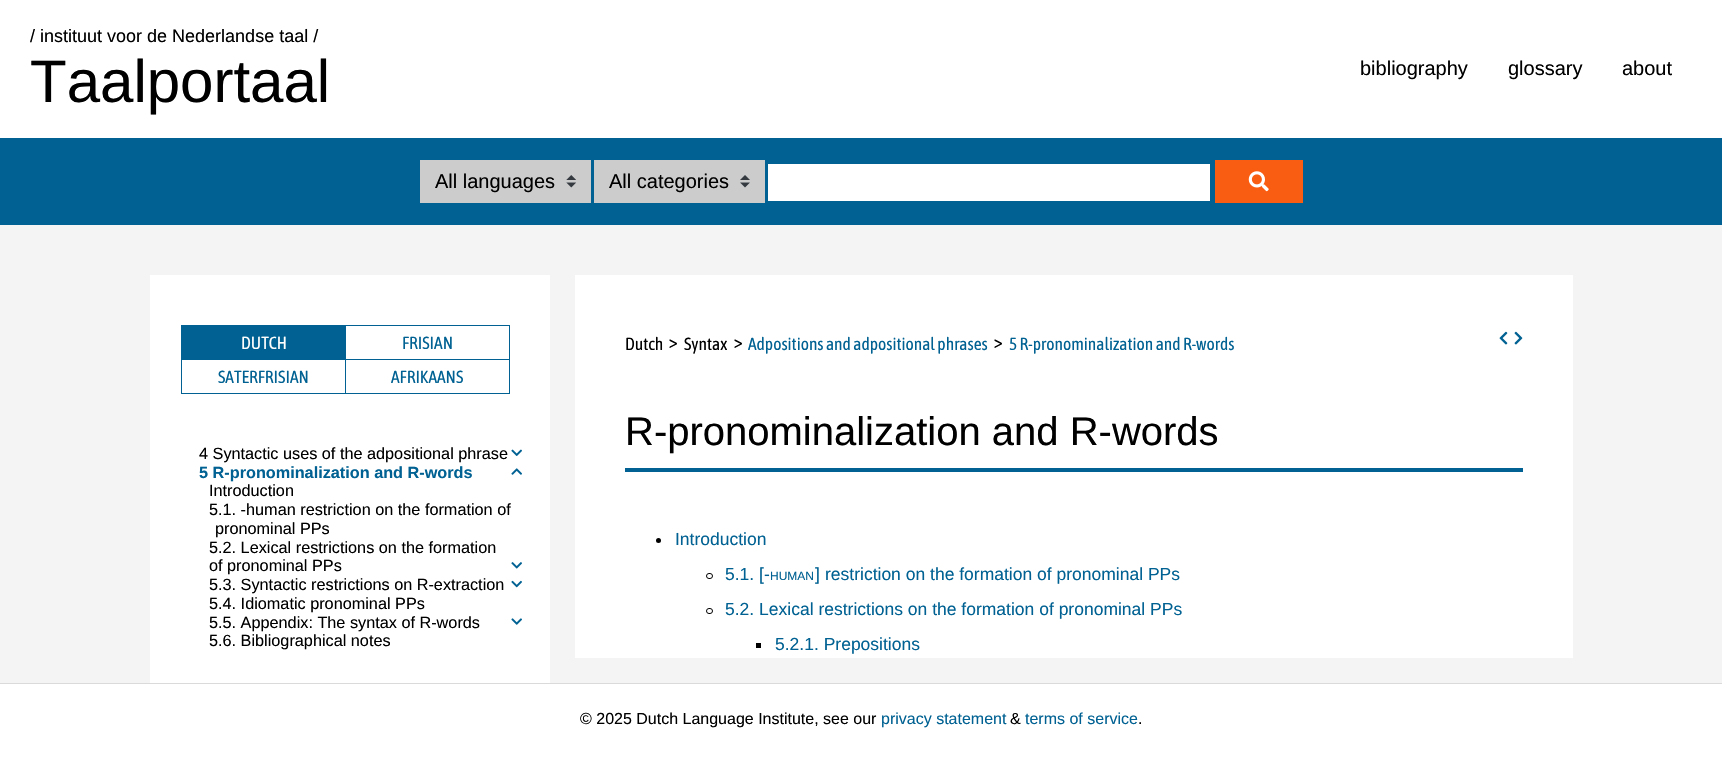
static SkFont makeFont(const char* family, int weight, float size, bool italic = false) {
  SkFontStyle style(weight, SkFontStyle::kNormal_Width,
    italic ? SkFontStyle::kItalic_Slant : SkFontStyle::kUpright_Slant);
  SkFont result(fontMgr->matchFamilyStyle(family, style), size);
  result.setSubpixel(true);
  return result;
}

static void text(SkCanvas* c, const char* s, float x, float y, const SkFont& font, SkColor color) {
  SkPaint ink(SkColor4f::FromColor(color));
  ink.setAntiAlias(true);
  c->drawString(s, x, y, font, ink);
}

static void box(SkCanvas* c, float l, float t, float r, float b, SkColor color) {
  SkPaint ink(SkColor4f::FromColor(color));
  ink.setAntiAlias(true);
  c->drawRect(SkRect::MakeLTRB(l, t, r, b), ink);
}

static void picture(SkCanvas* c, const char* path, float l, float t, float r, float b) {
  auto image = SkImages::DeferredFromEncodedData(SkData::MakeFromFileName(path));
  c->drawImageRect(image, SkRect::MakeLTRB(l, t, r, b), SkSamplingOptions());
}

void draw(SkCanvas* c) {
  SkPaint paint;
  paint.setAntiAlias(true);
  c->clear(0xffffffff);
  SkFont face1 = makeFont("Liberation Sans", 400, 18);
  text(c, "/ instituut voor de Nederlandse taal /", 30, 42, face1, 0xff000000);
  SkFont face2 = makeFont("Liberation Sans", 400, 60);
  text(c, "Taalportaal", 30, 102, face2, 0xff000000);
  SkFont face3 = makeFont("Liberation Sans", 400, 20);
  text(c, "bibliography", 1360, 75, face3, 0xff000000);
  text(c, "glossary", 1508, 75, face3, 0xff000000);
  text(c, "about", 1622, 75, face3, 0xff000000);
  box(c, 0, 138, 1722, 225, 0xff006192);
  box(c, 420, 160, 591, 203, 0xffcccccc);
  picture(c, "img_01.png", 566, 175, 576, 188);
  text(c, "All languages", 435, 188, face3, 0xff000000);
  box(c, 594, 160, 765, 203, 0xffcccccc);
  picture(c, "img_02.png", 740, 175, 750, 188);
  text(c, "All categories", 609, 188, face3, 0xff000000);
  box(c, 768, 164, 1210, 201, 0xffffffff);
  box(c, 1215, 160, 1303, 203, 0xfff95d11);
  picture(c, "img_03.png", 1248, 171, 1269, 192);
  box(c, 0, 225, 1722, 683, 0xfff4f4f4);
  box(c, 150, 275, 550, 683, 0xffffffff);
  box(c, 181, 325, 345, 359, 0xff006192);
  SkFont face4 = makeFont("Asap Condensed", 400, 17.5f);
  text(c, "DUTCH", 241, 349, face4, 0xffffffff);
  paint.setStyle(SkPaint::kStroke_Style);
  paint.setStrokeWidth(1);
  paint.setColor(0xff006192);
  c->drawRect(SkRect::MakeLTRB(345.5f, 325.5f, 509.5f, 359.5f), paint);
  text(c, "FRISIAN", 402, 349, face4, 0xff006192);
  c->drawRect(SkRect::MakeLTRB(181.5f, 359.5f, 345.5f, 393.5f), paint);
  text(c, "SATERFRISIAN", 218, 383, face4, 0xff006192);
  c->drawRect(SkRect::MakeLTRB(345.5f, 359.5f, 509.5f, 393.5f), paint);
  text(c, "AFRIKAANS", 391, 383, face4, 0xff006192);
  SkFont face5 = makeFont("Liberation Sans", 400, 16.25f);
  text(c, "4 Syntactic uses of the adpositional phrase", 199, 459, face5, 0xff000000);
  picture(c, "img_04.png", 511, 449, 522, 456);
  SkFont face6 = makeFont("Liberation Sans", 700, 16.25f);
  text(c, "5 R-pronominalization and R-words", 199, 478, face6, 0xff006192);
  picture(c, "img_05.png", 511, 468, 522, 475);
  text(c, "Introduction", 209, 496, face5, 0xff000000);
  text(c, "5.1. -human restriction on the formation of", 209, 515, face5, 0xff000000);
  text(c, "pronominal PPs", 215, 534, face5, 0xff000000);
  text(c, "5.2. Lexical restrictions on the formation", 209, 553, face5, 0xff000000);
  text(c, "of pronominal PPs", 209, 571, face5, 0xff000000);
  picture(c, "img_06.png", 511, 562, 522, 569);
  text(c, "5.3. Syntactic restrictions on R-extraction", 209, 590, face5, 0xff000000);
  picture(c, "img_07.png", 511, 580, 522, 588);
  text(c, "5.4. Idiomatic pronominal PPs", 209, 609, face5, 0xff000000);
  text(c, "5.5. Appendix: The syntax of R-words", 209, 628, face5, 0xff000000);
  picture(c, "img_08.png", 511, 618, 522, 625);
  text(c, "5.6. Bibliographical notes", 209, 646, face5, 0xff000000);
  box(c, 575, 275, 1573, 658, 0xffffffff);
  text(c, "Dutch", 625, 350, face4, 0xff000000);
  SkFont face7 = makeFont("Asap Condensed", 400, 19);
  text(c, ">", 669, 348, face7, 0xff000000);
  text(c, "Syntax", 684, 350, face4, 0xff000000);
  text(c, ">", 734, 348, face7, 0xff000000);
  text(c, "Adpositions and adpositional phrases", 748, 350, face4, 0xff006192);
  text(c, ">", 994, 348, face7, 0xff000000);
  text(c, "5 R-pronominalization and R-words", 1009, 350, face4, 0xff006192);
  picture(c, "img_09.png", 1499, 331, 1508, 345);
  picture(c, "img_10.png", 1514, 331, 1523, 345);
  box(c, 625, 468, 1523, 472, 0xff006192);
  SkFont face8 = makeFont("Liberation Sans", 400, 40);
  text(c, "R-pronominalization and R-words", 625, 445, face8, 0xff000000);
  paint.setStyle(SkPaint::kFill_Style);
  paint.setColor(0xff000000);
  c->drawCircle(658.5f, 540.5f, 2.5f, paint);
  SkFont face9 = makeFont("Liberation Sans", 400, 17.5f);
  text(c, "Introduction", 675, 545, face9, 0xff006192);
  paint.setStyle(SkPaint::kStroke_Style);
  c->drawRoundRect(SkRect::MakeLTRB(706.5f, 573.5f, 712.5f, 578.5f), 2.5f, 2.5f, paint);
  text(c, "5.1. [-", 725, 580, face9, 0xff006192);
  SkFont face10 = makeFont("Liberation Sans", 400, 12);
  text(c, "HUMAN", 770, 580, face10, 0xff006192);
  text(c, "]", 815, 580, face9, 0xff006192);
  text(c, "restriction on the formation of pronominal PPs", 825, 580, face9, 0xff006192);
  c->drawRoundRect(SkRect::MakeLTRB(706.5f, 608.5f, 712.5f, 613.5f), 2.5f, 2.5f, paint);
  text(c, "5.2. Lexical restrictions on the formation of pronominal PPs", 725, 615, face9, 0xff006192);
  box(c, 756, 643, 761, 648, 0xff000000);
  text(c, "5.2.1. Prepositions", 775, 650, face9, 0xff006192);
  box(c, 0, 683, 1722, 684, 0xffdbdada);
  SkFont face11 = makeFont("Liberation Sans", 400, 16);
  text(c, "© 2025 Dutch Language Institute, see our", 580, 724, face11, 0xff000000);
  text(c, "privacy statement", 881, 724, face11, 0xff006192);
  text(c, "&", 1010, 724, face11, 0xff000000);
  text(c, "terms of service", 1025, 724, face11, 0xff006192);
  text(c, ".", 1138, 724, face11, 0xff000000);
}
